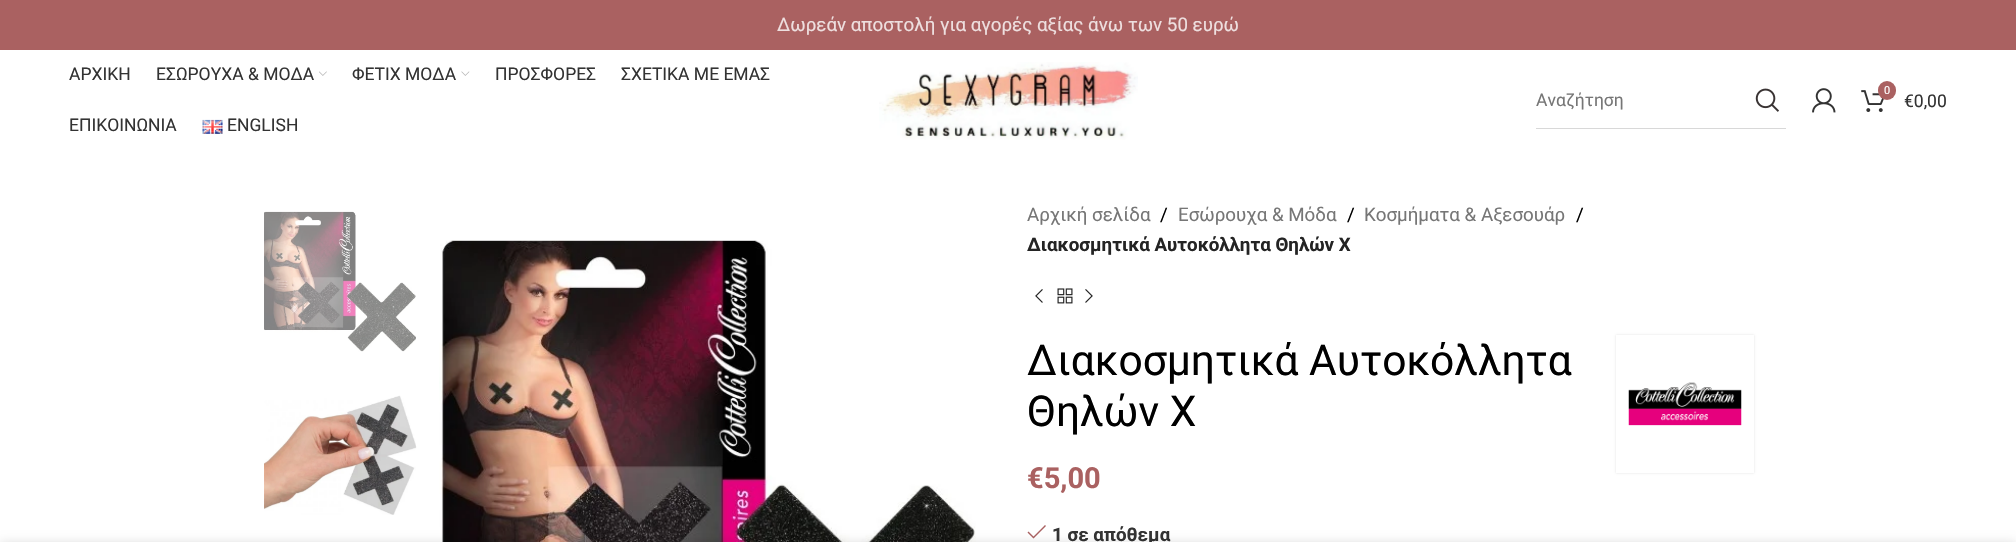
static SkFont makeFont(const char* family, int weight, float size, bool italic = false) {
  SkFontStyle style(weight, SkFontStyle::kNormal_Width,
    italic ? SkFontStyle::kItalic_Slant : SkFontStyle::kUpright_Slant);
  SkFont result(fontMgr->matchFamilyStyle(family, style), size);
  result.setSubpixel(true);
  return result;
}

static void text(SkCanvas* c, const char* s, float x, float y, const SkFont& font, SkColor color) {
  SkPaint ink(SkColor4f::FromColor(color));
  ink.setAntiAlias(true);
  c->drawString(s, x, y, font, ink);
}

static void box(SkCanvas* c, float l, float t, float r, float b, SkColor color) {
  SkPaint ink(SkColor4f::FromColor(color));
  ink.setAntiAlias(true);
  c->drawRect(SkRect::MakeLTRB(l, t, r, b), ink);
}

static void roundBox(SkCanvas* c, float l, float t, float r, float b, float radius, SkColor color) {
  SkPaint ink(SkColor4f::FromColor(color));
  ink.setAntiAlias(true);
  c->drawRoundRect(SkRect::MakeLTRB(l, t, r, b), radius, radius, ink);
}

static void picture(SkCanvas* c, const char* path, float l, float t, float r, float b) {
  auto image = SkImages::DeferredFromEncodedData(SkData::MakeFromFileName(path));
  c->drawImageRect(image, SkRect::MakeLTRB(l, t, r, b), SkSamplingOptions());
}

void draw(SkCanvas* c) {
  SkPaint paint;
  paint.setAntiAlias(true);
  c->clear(0xffffffff);
  box(c, 0, 0, 2016, 50, 0xffaa6161);
  SkFont face1 = makeFont("Roboto", 400, 18.75f);
  text(c, "Δωρεάν αποστολή για αγορές αξίας άνω των 50 ευρώ", 777, 31, face1, 0xffeedfdf);
  SkFont face2 = makeFont("Roboto", 400, 17.5f);
  text(c, "ΑΡΧΙΚΗ", 69, 80, face2, 0xff333333);
  text(c, "ΕΣΩΡΟΥΧΑ & ΜΟΔΑ", 156, 80, face2, 0xff333333);
  picture(c, "img_01.png", 319, 71, 327, 76);
  text(c, "ΦΕΤΙΧ ΜΟΔΑ", 352, 80, face2, 0xff333333);
  picture(c, "img_02.png", 461, 71, 470, 76);
  text(c, "ΠΡΟΣΦΟΡΕΣ", 495, 80, face2, 0xff333333);
  text(c, "ΣΧΕΤΙΚΑ ΜΕ ΕΜΑΣ", 621, 80, face2, 0xff333333);
  text(c, "ΕΠΙΚΟΙΝΩΝΙΑ", 69, 131, face2, 0xff333333);
  picture(c, "img_03.png", 202, 119, 223, 134);
  text(c, "ENGLISH", 227, 131, face2, 0xff333333);
  picture(c, "img_04.png", 879, 62, 1138, 140);
  box(c, 1536, 128, 1786, 129, 0xffd8d8d8);
  text(c, "Αναζήτηση", 1536, 106, face2, 0xff767676);
  picture(c, "img_05.png", 1755, 88, 1779, 112);
  picture(c, "img_06.png", 1812, 88, 1836, 113);
  picture(c, "img_07.png", 1861, 90, 1884, 112);
  roundBox(c, 1878, 81, 1896, 100, 9, 0xffaa6161);
  SkFont face3 = makeFont("Roboto", 400, 11);
  text(c, "0", 1884, 94, face3, 0xffffffff);
  text(c, "€0,00", 1904, 107, face2, 0xff333333);
  picture(c, "img_08.png", 264, 211, 416, 352);
  picture(c, "img_09.png", 264, 395, 417, 515);
  picture(c, "img_10.png", 439, 240, 976, 542);
  text(c, "Αρχική σελίδα", 1027, 221, face1, 0xff767676);
  text(c, "/", 1160, 221, face1, 0xff000000);
  text(c, "Εσώρουχα & Μόδα", 1178, 221, face1, 0xff767676);
  text(c, "/", 1347, 221, face1, 0xff000000);
  text(c, "Κοσμήματα & Αξεσουάρ", 1364, 221, face1, 0xff767676);
  text(c, "/", 1576, 221, face1, 0xff000000);
  SkFont face4 = makeFont("Roboto", 700, 18.75f);
  text(c, "Διακοσμητικά Αυτοκόλλητα Θηλών Χ", 1027, 251, face4, 0xff242424);
  picture(c, "img_11.png", 1035, 289, 1043, 303);
  picture(c, "img_12.png", 1057, 288, 1073, 304);
  picture(c, "img_13.png", 1085, 289, 1093, 303);
  SkFont face5 = makeFont("Roboto", 400, 42.5f);
  text(c, "Διακοσμητικά Αυτοκόλλητα", 1027, 375, face5, 0xff000000);
  text(c, "Θηλών Χ", 1027, 426, face5, 0xff000000);
  paint.setColor(0x1f000000);
  paint.setMaskFilter(SkMaskFilter::MakeBlur(kNormal_SkBlurStyle, 1));
  c->drawRect(SkRect::MakeLTRB(1616, 335, 1754, 473), paint);
  paint.setMaskFilter(nullptr);
  box(c, 1616, 335, 1754, 473, 0xffffffff);
  picture(c, "img_14.png", 1628, 382, 1742, 426);
  SkFont face6 = makeFont("Roboto", 700, 29);
  text(c, "€5,00", 1027, 488, face6, 0xffaa6161);
  paint.setColor(0xffaa6161);
  c->drawPath(SkPathBuilder().moveTo(1046, 526).lineTo(1045, 525).lineTo(1033.5f, 536.5f).lineTo(1028.5f, 531.5f).lineTo(1027.5f, 532.5f).lineTo(1033.5f, 538.5f).close().detach(), paint);
  text(c, "1 σε απόθεμα", 1052, 541, face4, 0xff333333);
  paint.setColor(0x24000000);
  paint.setMaskFilter(SkMaskFilter::MakeBlur(kNormal_SkBlurStyle, 5.5f));
  c->drawRect(SkRect::MakeLTRB(0, 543, 2016, 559), paint);
  paint.setMaskFilter(nullptr);
}
